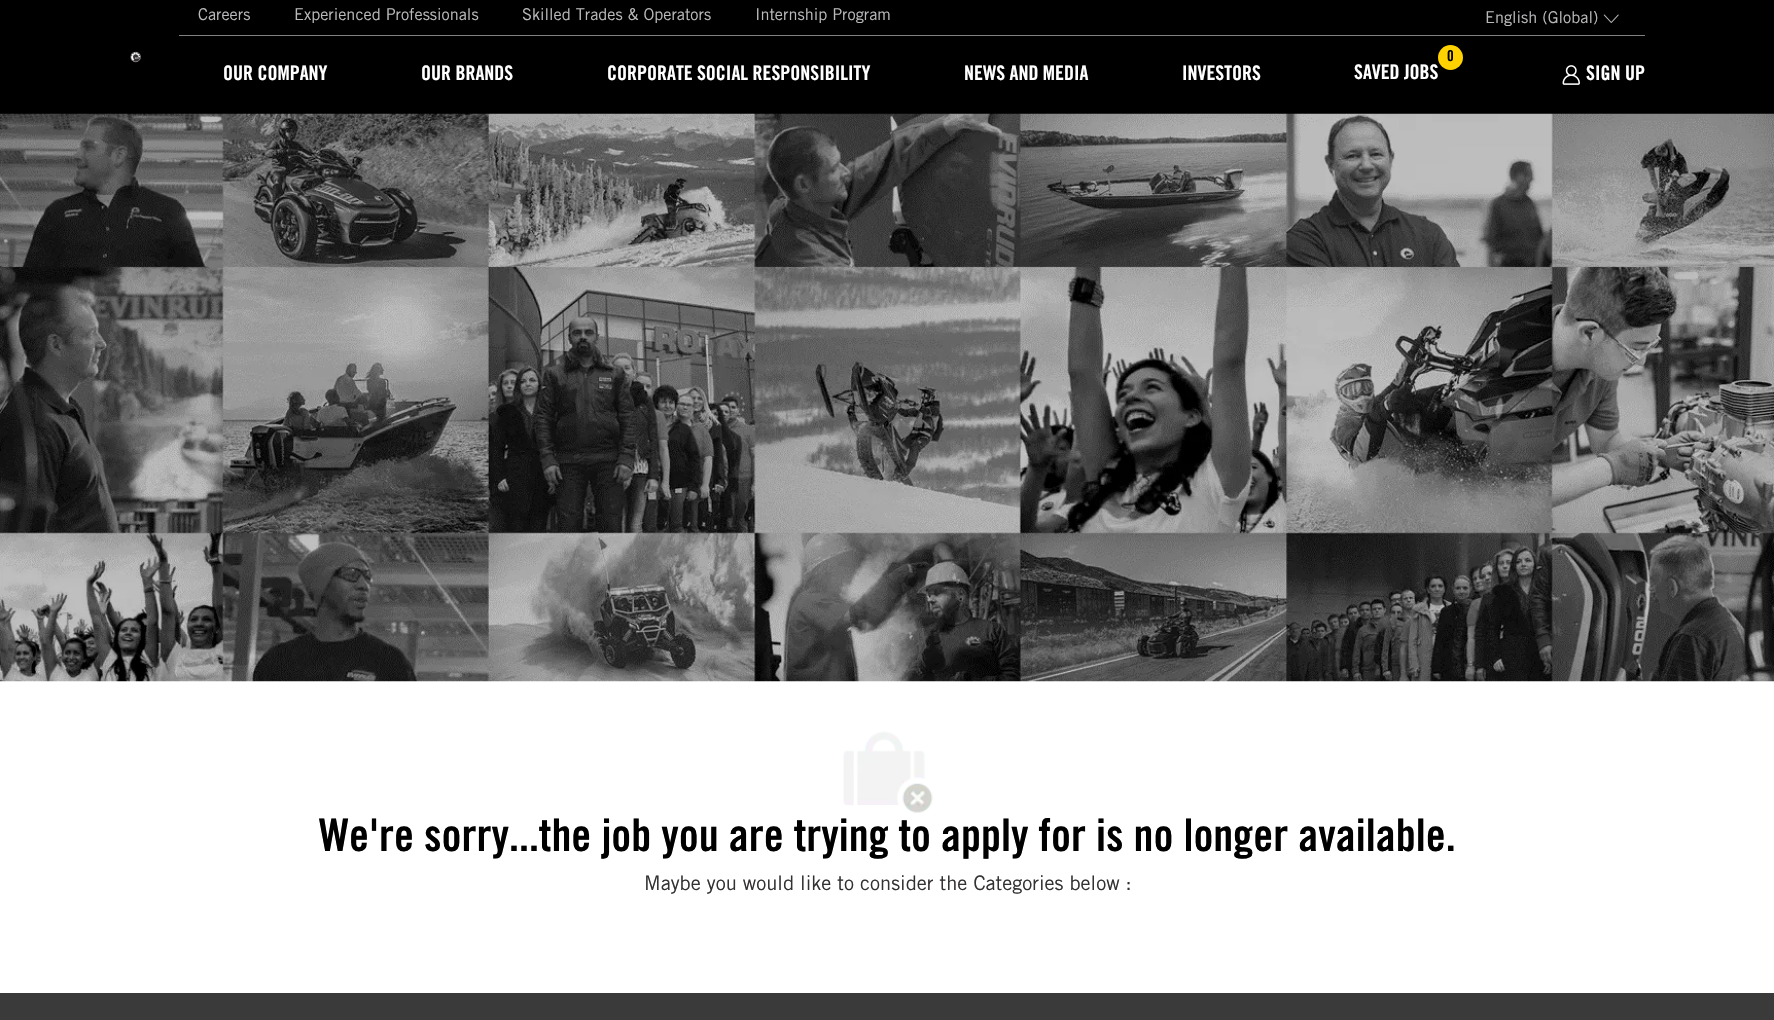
static SkFont makeFont(const char* family, int weight, float size, bool italic = false) {
  SkFontStyle style(weight, SkFontStyle::kNormal_Width,
    italic ? SkFontStyle::kItalic_Slant : SkFontStyle::kUpright_Slant);
  SkFont result(fontMgr->matchFamilyStyle(family, style), size);
  result.setSubpixel(true);
  return result;
}

static void text(SkCanvas* c, const char* s, float x, float y, const SkFont& font, SkColor color) {
  SkPaint ink(SkColor4f::FromColor(color));
  ink.setAntiAlias(true);
  c->drawString(s, x, y, font, ink);
}

static void box(SkCanvas* c, float l, float t, float r, float b, SkColor color) {
  SkPaint ink(SkColor4f::FromColor(color));
  ink.setAntiAlias(true);
  c->drawRect(SkRect::MakeLTRB(l, t, r, b), ink);
}

static void picture(SkCanvas* c, const char* path, float l, float t, float r, float b) {
  auto image = SkImages::DeferredFromEncodedData(SkData::MakeFromFileName(path));
  c->drawImageRect(image, SkRect::MakeLTRB(l, t, r, b), SkSamplingOptions());
}

void draw(SkCanvas* c) {
  SkPaint paint;
  paint.setAntiAlias(true);
  c->clear(0xffffffff);
  box(c, 0, 0, 1774, 114, 0xff000000);
  picture(c, "img_01.png", 130, 51, 141, 63);
  box(c, 179, 35, 1645, 36, 0xff808080);
  SkFont face1 = makeFont("Trade Gothic", 400, 16.25f);
  text(c, "Careers", 198, 20, face1, 0xffb9b8bb);
  text(c, "Experienced Professionals", 294, 20, face1, 0xffb9b8bb);
  text(c, "Skilled Trades & Operators", 522, 20, face1, 0xffb9b8bb);
  text(c, "Internship Program", 755, 20, face1, 0xffb9b8bb);
  text(c, "English (Global)", 1485, 23, face1, 0xffb9b8bb);
  picture(c, "img_02.png", 1603, 14, 1619, 23);
  SkFont face2 = makeFont("Trade Gothic", 700, 20);
  text(c, "OUR COMPANY", 223, 80, face2, 0xffffffff);
  text(c, "OUR BRANDS", 421, 80, face2, 0xffffffff);
  text(c, "CORPORATE SOCIAL RESPONSIBILITY", 607, 80, face2, 0xffffffff);
  text(c, "NEWS AND MEDIA", 964, 80, face2, 0xffffffff);
  text(c, "INVESTORS", 1182, 80, face2, 0xffffffff);
  paint.setColor(0xffffd200);
  c->drawCircle(1450.5f, 57.5f, 12.5f, paint);
  SkFont face3 = makeFont("Trade Gothic", 700, 15);
  text(c, "0", 1447, 61, face3, 0xff000000);
  text(c, "SAVED JOBS", 1354, 79, face2, 0xffffffff);
  picture(c, "img_03.png", 1562, 65, 1580, 85);
  text(c, "SIGN UP", 1586, 80, face2, 0xffffffff);
  picture(c, "img_04.png", 0, 113, 1774, 682);
  picture(c, "img_05.png", 843, 731, 933, 813);
  SkFont face4 = makeFont("Trade Gothic", 700, 45);
  text(c, "We're sorry...the job you are trying to apply for is no longer available.", 319, 851, face4, 0xff000000);
  SkFont face5 = makeFont("Trade Gothic", 400, 20);
  text(c, "Maybe you would like to consider the Categories below :", 644, 890, face5, 0xff333132);
  box(c, 0, 993, 1774, 1020, 0xff3a3a3a);
}
